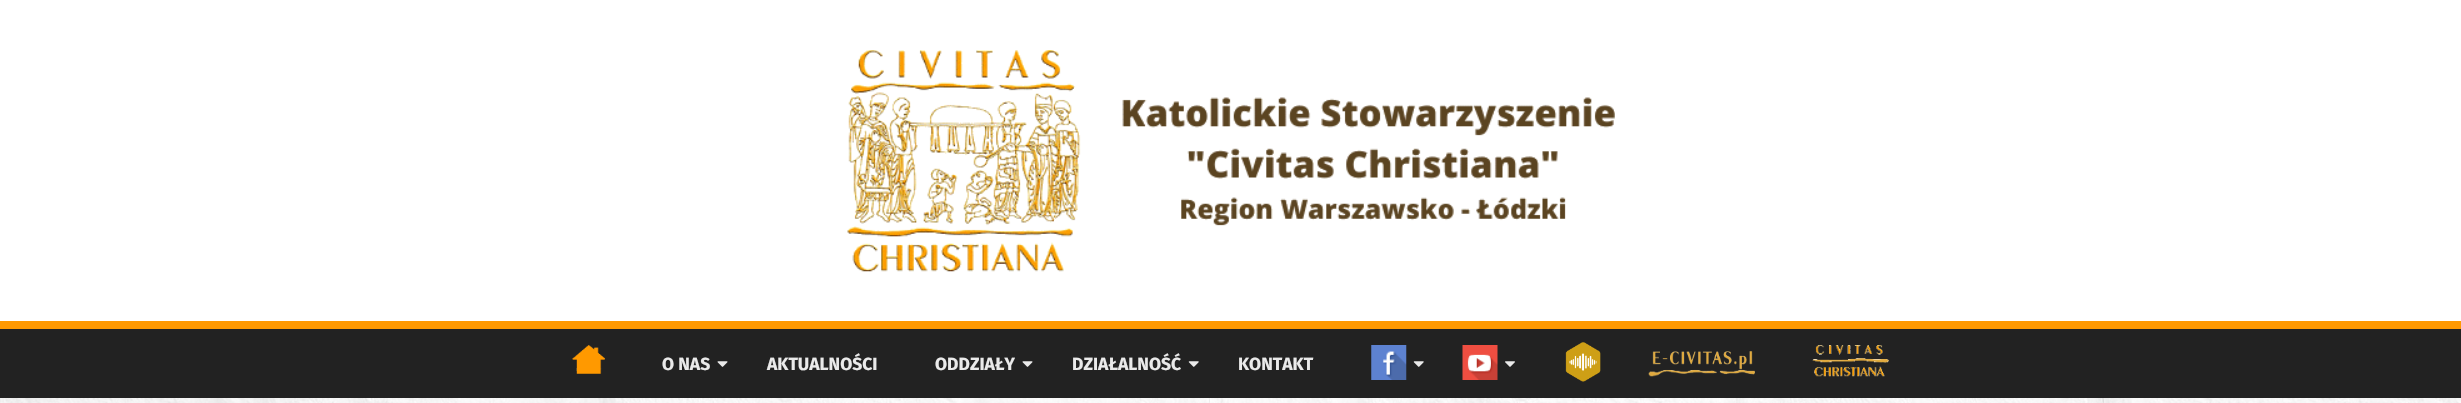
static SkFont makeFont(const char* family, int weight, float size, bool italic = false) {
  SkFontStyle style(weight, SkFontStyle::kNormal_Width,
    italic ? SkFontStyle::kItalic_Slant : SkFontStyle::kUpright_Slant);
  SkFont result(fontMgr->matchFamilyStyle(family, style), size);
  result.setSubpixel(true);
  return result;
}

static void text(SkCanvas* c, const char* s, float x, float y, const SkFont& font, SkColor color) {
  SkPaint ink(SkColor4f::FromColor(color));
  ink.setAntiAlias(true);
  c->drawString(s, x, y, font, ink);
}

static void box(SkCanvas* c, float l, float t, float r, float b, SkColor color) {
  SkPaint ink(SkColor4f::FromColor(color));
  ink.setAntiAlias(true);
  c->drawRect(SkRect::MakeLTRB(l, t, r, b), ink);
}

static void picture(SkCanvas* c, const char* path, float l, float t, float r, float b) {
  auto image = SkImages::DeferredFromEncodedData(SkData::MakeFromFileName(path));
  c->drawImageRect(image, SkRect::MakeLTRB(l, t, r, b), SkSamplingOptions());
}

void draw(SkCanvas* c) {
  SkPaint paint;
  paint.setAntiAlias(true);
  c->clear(0xffffffff);
  picture(c, "img_01.png", 0, 398, 2461, 403);
  picture(c, "img_02.png", 847, 50, 1615, 272);
  box(c, 0, 321, 2461, 329, 0xffff9901);
  box(c, 0, 329, 2461, 398, 0xff222222);
  picture(c, "img_03.png", 572, 345, 605, 374);
  SkFont face1 = makeFont("Fira Sans", 700, 17.5f);
  text(c, "O NAS", 662, 370, face1, 0xffeaeaea);
  picture(c, "img_04.png", 717, 361, 728, 367);
  text(c, "AKTUALNOŚCI", 767, 370, face1, 0xffeaeaea);
  text(c, "ODDZIAŁY", 935, 370, face1, 0xffeaeaea);
  picture(c, "img_04.png", 1022, 361, 1033, 367);
  text(c, "DZIAŁALNOŚĆ", 1072, 370, face1, 0xffeaeaea);
  picture(c, "img_05.png", 1188, 361, 1199, 367);
  text(c, "KONTAKT", 1238, 370, face1, 0xffeaeaea);
  picture(c, "img_06.png", 1371, 345, 1407, 380);
  picture(c, "img_05.png", 1413, 361, 1424, 367);
  picture(c, "img_07.png", 1462, 345, 1498, 380);
  picture(c, "img_08.png", 1505, 361, 1515, 367);
  picture(c, "img_09.png", 1565, 342, 1601, 382);
  picture(c, "img_10.png", 1648, 351, 1755, 377);
  picture(c, "img_11.png", 1812, 345, 1889, 377);
}
